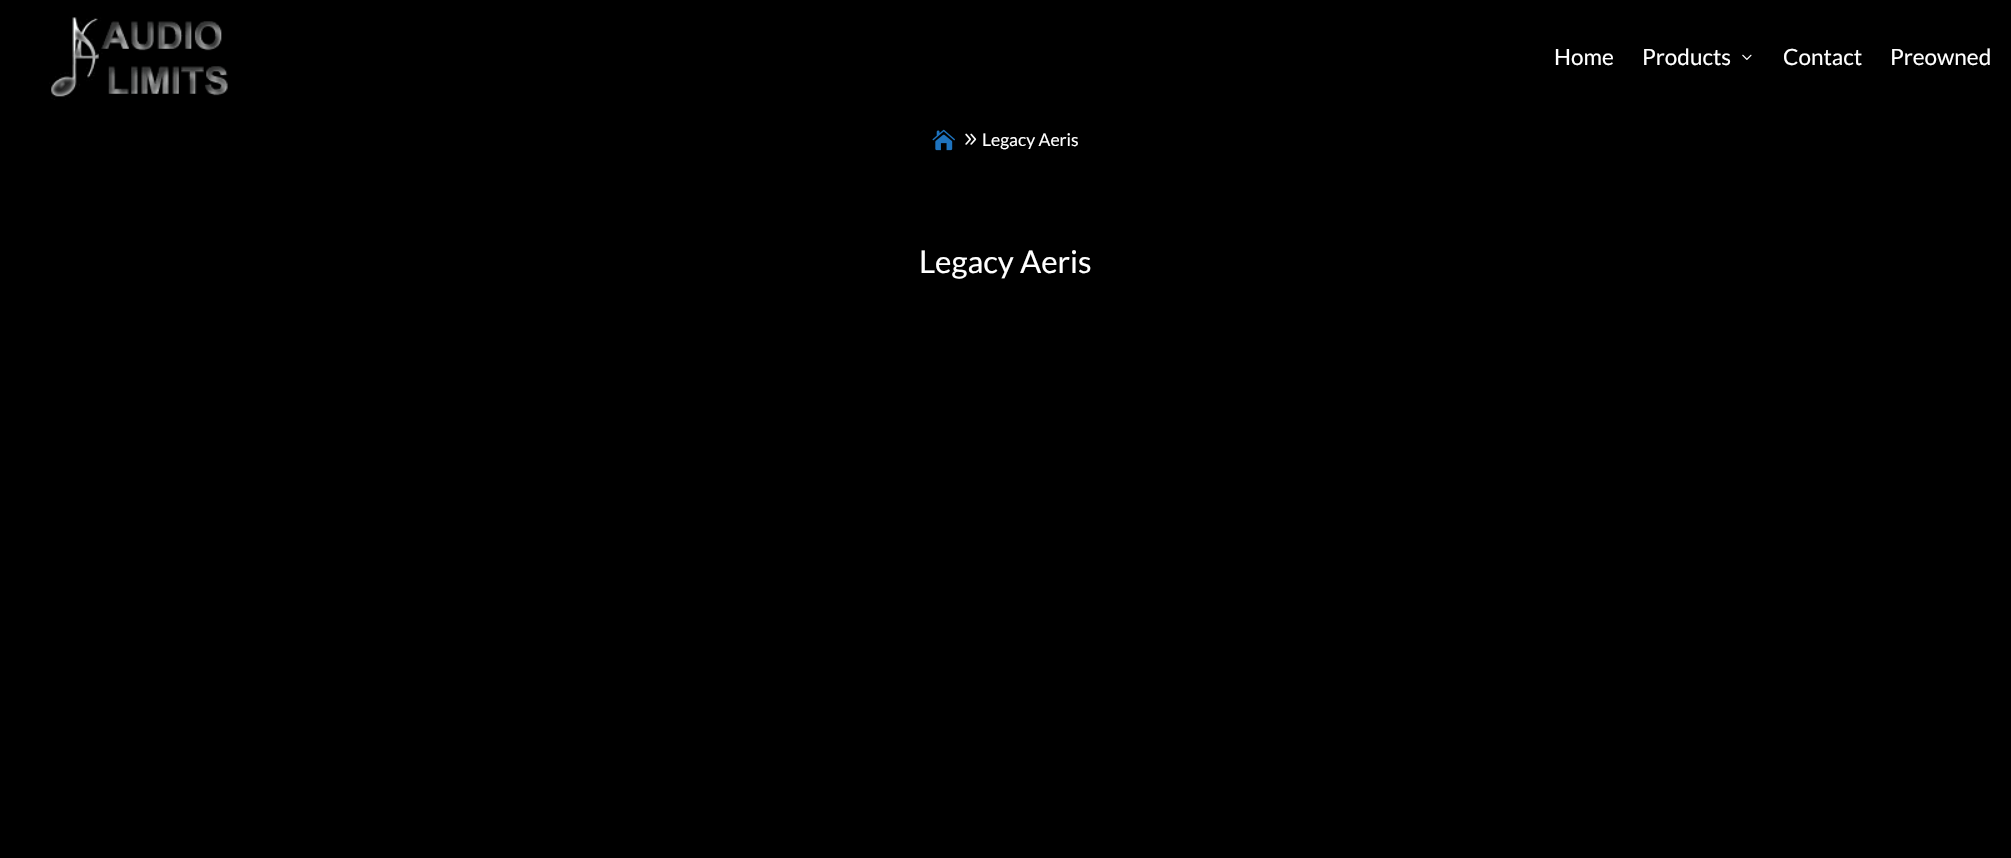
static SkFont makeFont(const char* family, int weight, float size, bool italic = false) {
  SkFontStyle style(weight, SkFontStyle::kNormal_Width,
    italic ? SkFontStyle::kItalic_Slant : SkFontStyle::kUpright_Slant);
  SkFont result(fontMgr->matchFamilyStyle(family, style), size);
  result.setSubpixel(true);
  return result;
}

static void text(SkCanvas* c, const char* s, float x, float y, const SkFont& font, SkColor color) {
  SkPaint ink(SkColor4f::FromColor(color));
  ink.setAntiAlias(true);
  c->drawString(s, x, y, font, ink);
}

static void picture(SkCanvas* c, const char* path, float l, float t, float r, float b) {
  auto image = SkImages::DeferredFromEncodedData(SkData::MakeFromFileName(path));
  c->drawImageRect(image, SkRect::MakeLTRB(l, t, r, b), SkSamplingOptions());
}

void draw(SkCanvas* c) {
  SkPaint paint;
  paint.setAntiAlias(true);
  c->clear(0xff000000);
  picture(c, "img_01.png", 49, 17, 228, 100);
  SkFont face1 = makeFont("Lato", 400, 22.5f);
  text(c, "Home", 1554, 65, face1, 0xffffffff);
  text(c, "Products", 1642, 65, face1, 0xffffffff);
  picture(c, "img_02.png", 1742, 54, 1752, 60);
  text(c, "Contact", 1783, 65, face1, 0xffffffff);
  text(c, "Preowned", 1890, 65, face1, 0xffffffff);
  picture(c, "img_03.png", 932, 129, 955, 151);
  SkFont face2 = makeFont("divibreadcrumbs", 400, 22.5f);
  text(c, "9", 959, 149, face2, 0xffffffff);
  SkFont face3 = makeFont("Lato", 400, 17.5f);
  text(c, "Legacy Aeris", 982, 146, face3, 0xffffffff);
  SkFont face4 = makeFont("Lato", 400, 31.25f);
  text(c, "Legacy Aeris", 919, 273, face4, 0xffffffff);
}
